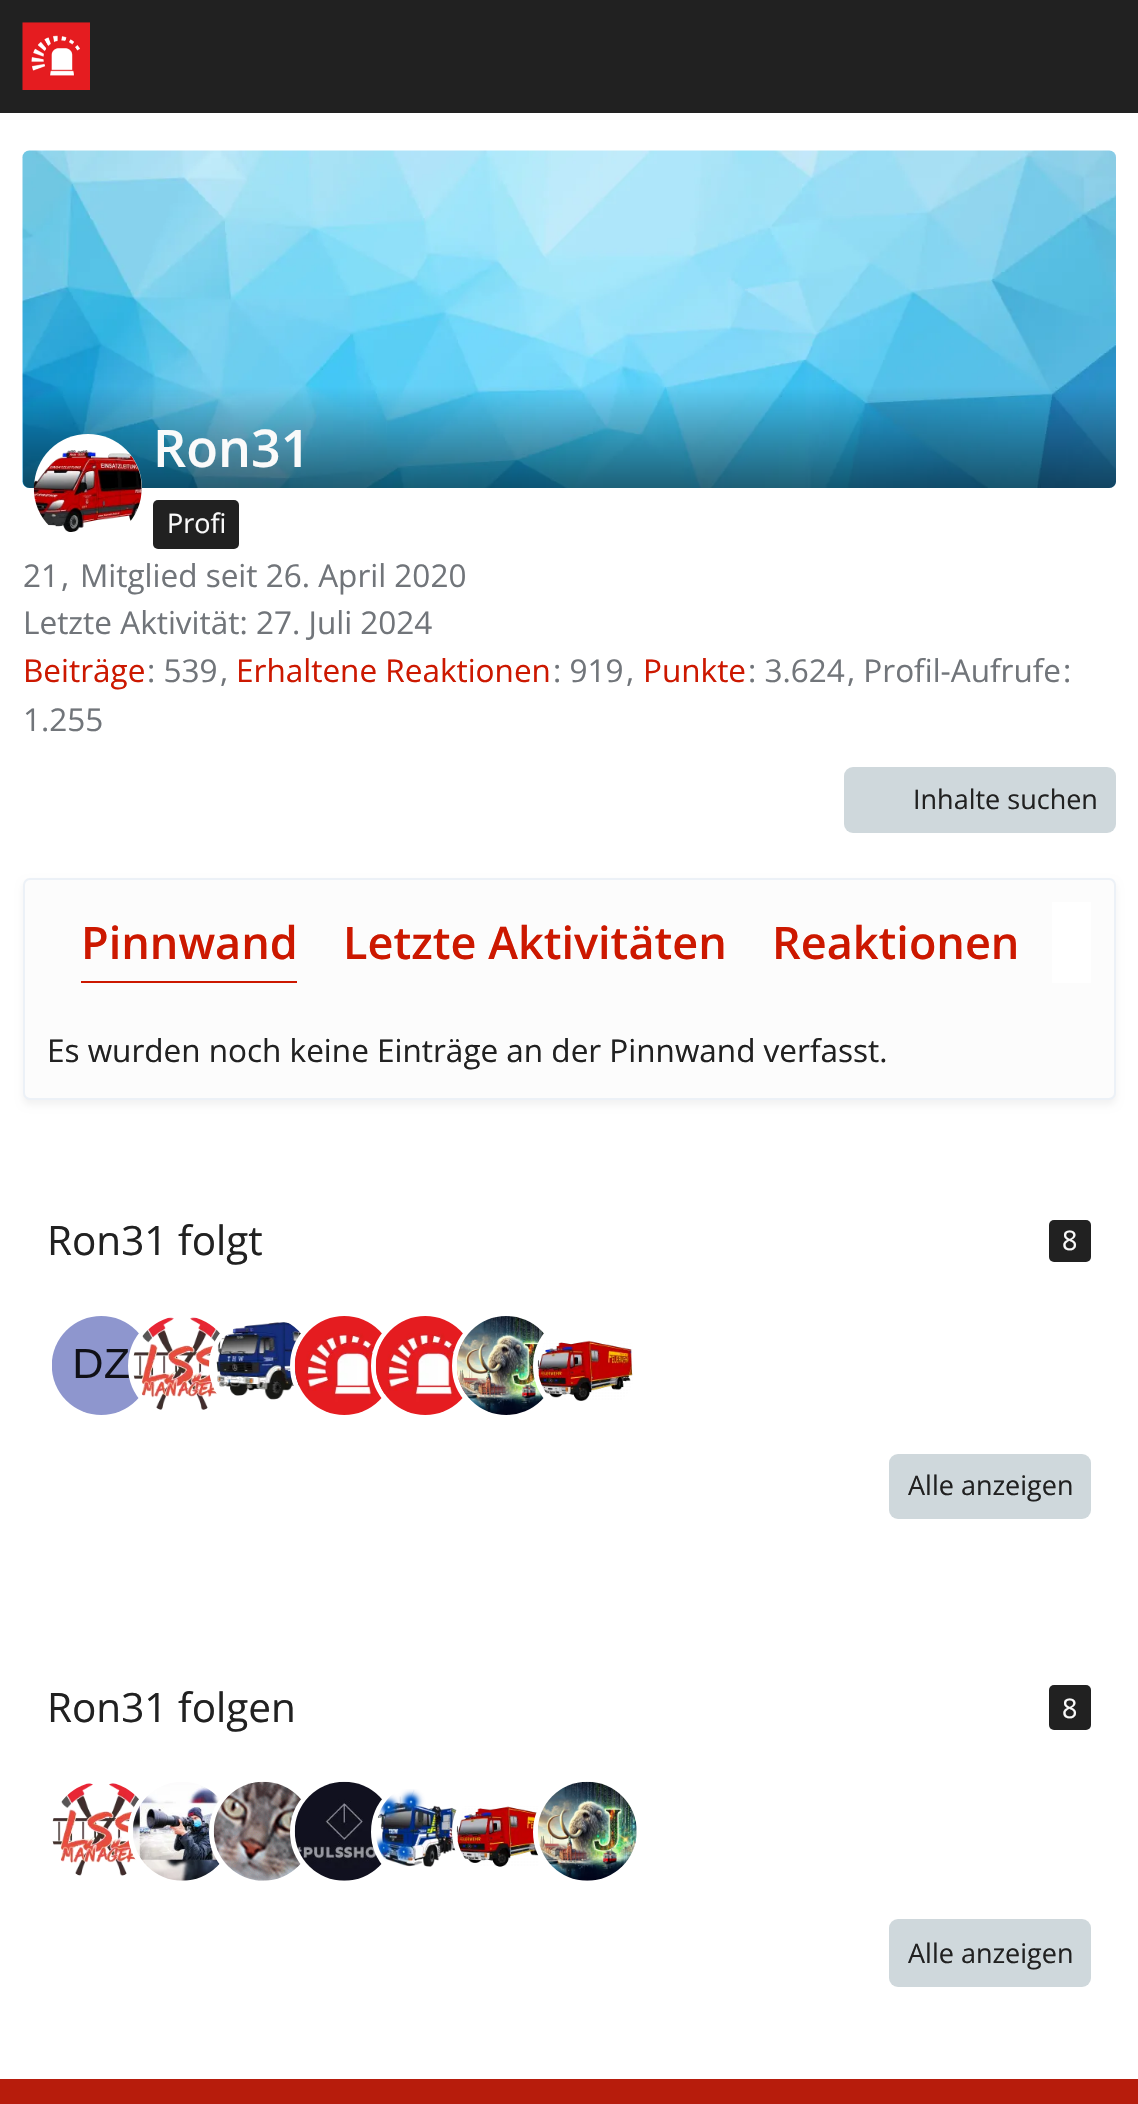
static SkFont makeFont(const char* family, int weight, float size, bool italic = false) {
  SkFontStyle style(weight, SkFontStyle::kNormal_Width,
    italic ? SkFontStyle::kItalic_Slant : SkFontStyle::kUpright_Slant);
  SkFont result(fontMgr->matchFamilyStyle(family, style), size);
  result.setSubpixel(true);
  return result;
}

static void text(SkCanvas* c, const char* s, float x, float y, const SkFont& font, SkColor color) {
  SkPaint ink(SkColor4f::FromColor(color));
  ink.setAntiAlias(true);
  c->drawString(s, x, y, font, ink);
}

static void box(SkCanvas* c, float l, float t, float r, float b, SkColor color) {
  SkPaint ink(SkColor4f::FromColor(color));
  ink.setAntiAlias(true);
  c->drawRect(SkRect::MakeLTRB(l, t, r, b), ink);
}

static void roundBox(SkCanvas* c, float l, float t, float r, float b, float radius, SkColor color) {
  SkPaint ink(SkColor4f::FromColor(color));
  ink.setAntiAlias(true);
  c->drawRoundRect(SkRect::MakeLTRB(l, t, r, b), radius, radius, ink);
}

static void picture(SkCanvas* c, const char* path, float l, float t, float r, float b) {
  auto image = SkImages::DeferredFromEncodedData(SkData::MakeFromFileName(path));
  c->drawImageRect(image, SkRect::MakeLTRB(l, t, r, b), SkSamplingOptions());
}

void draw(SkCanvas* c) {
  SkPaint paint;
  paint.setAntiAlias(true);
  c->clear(0xffffffff);
  box(c, 0, 0, 1138, 113, 0xff212121);
  picture(c, "img_01.png", 22, 22, 90, 90);
  picture(c, "img_02.png", 22, 150, 1116, 488);
  {
    const SkColor colors[] = {0x00000000, 0x80000000};
    const float stops[] = {0.7f, 1};
    const SkPoint ends[] = {{569, 151}, {569, 488}};
    paint.setShader(SkGradientShader::MakeLinear(ends, colors, stops, 2, SkTileMode::kClamp));
    paint.setAlpha(255);
  }
  c->drawPath(SkPathBuilder().moveTo(23, 151).lineTo(1116, 151).lineTo(1116, 481).cubicTo(1116, 485, 1113, 488, 1109, 488).lineTo(30, 488).cubicTo(26, 488, 23, 485, 23, 481).close().detach(), paint);
  SkFont face1 = makeFont("Open Sans", 600, 52);
  text(c, "Ron31", 153, 467, face1, 0xfffafafa);
  roundBox(c, 153, 500, 239, 549, 5, 0xff212121);
  SkFont face2 = makeFont("Open Sans", 400, 27);
  text(c, "Profi", 167, 533, face2, 0xfffafafa);
  SkFont face3 = makeFont("Open Sans", 400, 31.5f);
  text(c, "21", 23, 587, face3, 0xff71757a);
  text(c, ",", 61, 587, face3, 0xff71757a);
  text(c, "Mitglied seit 26. April 2020", 80, 587, face3, 0xff71757a);
  text(c, "Letzte Aktivität: 27. Juli 2024", 23, 634, face3, 0xff71757a);
  text(c, "Beiträge", 23, 682, face3, 0xffcc1800);
  text(c, ": 539", 147, 682, face3, 0xff71757a);
  text(c, ",", 220, 682, face3, 0xff71757a);
  text(c, "Erhaltene Reaktionen", 236, 682, face3, 0xffcc1800);
  text(c, ": 919", 553, 682, face3, 0xff71757a);
  text(c, ",", 626, 682, face3, 0xff71757a);
  text(c, "Punkte", 643, 682, face3, 0xffcc1800);
  text(c, ": 3.624", 748, 682, face3, 0xff71757a);
  text(c, ", Profil-Aufrufe", 847, 682, face3, 0xff71757a);
  text(c, ":", 1063, 682, face3, 0xff71757a);
  text(c, "1.255", 23, 731, face3, 0xff71757a);
  paint.setShader(nullptr);
  paint.setColor(0xffffffff);
  c->drawCircle(88, 488, 54, paint);
  picture(c, "img_03.png", 33, 450, 142, 532);
  roundBox(c, 844, 767, 1116, 833, 9, 0xffcfd8dc);
  text(c, "Inhalte suchen", 913, 809, face2, 0xff212121);
  paint.setColor(0x0d000000);
  paint.setMaskFilter(SkMaskFilter::MakeBlur(kNormal_SkBlurStyle, 3.5f));
  c->drawRoundRect(SkRect::MakeLTRB(23, 882, 1116, 1105), 7, 7, paint);
  paint.setMaskFilter(nullptr);
  paint.setColor(0xfffcfcfc);
  c->drawRoundRect(SkRect::MakeLTRB(24, 879, 1115, 1099), 6, 6, paint);
  paint.setStyle(SkPaint::kStroke_Style);
  paint.setStrokeWidth(2);
  paint.setColor(0xffecf1f7);
  c->drawRoundRect(SkRect::MakeLTRB(24, 879, 1115, 1099), 6, 6, paint);
  SkFont face4 = makeFont("Open Sans", 600, 45);
  text(c, "Pinnwand", 81, 959, face4, 0xffcc1800);
  box(c, 81, 981, 297, 983, 0xffcc1800);
  text(c, "Letzte Aktivitäten", 343, 959, face4, 0xffcc1800);
  text(c, "Reaktionen", 772, 959, face4, 0xffcc1800);
  paint.setStyle(SkPaint::kFill_Style);
  {
    const SkColor colors[] = {0xfffcfcfc, 0xffffffff};
    const float stops[] = {0, 0.5f};
    const SkPoint ends[] = {{1024, 943}, {1091, 943}};
    paint.setShader(SkGradientShader::MakeLinear(ends, colors, stops, 2, SkTileMode::kClamp));
    paint.setAlpha(255);
  }
  c->drawRect(SkRect::MakeLTRB(1052, 902, 1091, 983), paint);
  text(c, "Es wurden noch keine Einträge an der Pinnwand verfasst.", 47, 1062, face3, 0xff212121);
  SkFont face5 = makeFont("Open Sans", 400, 40.5f);
  text(c, "Ron31 folgt", 47, 1255, face5, 0xff212121);
  roundBox(c, 1049, 1220, 1091, 1262, 5, 0xff212121);
  text(c, "8", 1062, 1250, face2, 0xfffafafa);
  picture(c, "img_04.png", 52, 1316, 140, 1415);
  paint.setShader(nullptr);
  paint.setColor(0xffffffff);
  c->drawCircle(182, 1366, 51.5f, paint);
  paint.setStyle(SkPaint::kStroke_Style);
  paint.setStrokeWidth(5);
  c->drawCircle(182, 1366, 51.5f, paint);
  picture(c, "img_05.png", 133, 1317, 221, 1410);
  paint.setStyle(SkPaint::kFill_Style);
  c->drawCircle(263, 1366, 51.5f, paint);
  paint.setStyle(SkPaint::kStroke_Style);
  c->drawCircle(263, 1366, 51.5f, paint);
  picture(c, "img_06.png", 216, 1322, 304, 1400);
  c->drawCircle(344, 1366, 51.5f, paint);
  picture(c, "img_07.png", 294, 1316, 385, 1415);
  c->drawCircle(425, 1366, 51.5f, paint);
  picture(c, "img_08.png", 375, 1316, 466, 1415);
  c->drawCircle(506, 1366, 51.5f, paint);
  picture(c, "img_09.png", 456, 1316, 545, 1415);
  paint.setStyle(SkPaint::kFill_Style);
  c->drawCircle(587, 1366, 51.5f, paint);
  paint.setStyle(SkPaint::kStroke_Style);
  c->drawCircle(587, 1366, 51.5f, paint);
  picture(c, "img_10.png", 537, 1340, 633, 1401);
  roundBox(c, 889, 1454, 1091, 1519, 9, 0xffcfd8dc);
  text(c, "Alle anzeigen", 908, 1495, face2, 0xff212121);
  text(c, "Ron31 folgen", 47, 1722, face5, 0xff212121);
  roundBox(c, 1049, 1685, 1091, 1730, 5, 0xff212121);
  text(c, "8", 1062, 1718, face2, 0xfffafafa);
  picture(c, "img_11.png", 52, 1783, 140, 1876);
  paint.setStyle(SkPaint::kFill_Style);
  c->drawCircle(182, 1832, 51.5f, paint);
  paint.setStyle(SkPaint::kStroke_Style);
  c->drawCircle(182, 1832, 51.5f, paint);
  picture(c, "img_12.png", 133, 1782, 221, 1881);
  paint.setStyle(SkPaint::kFill_Style);
  c->drawCircle(263, 1832, 51.5f, paint);
  paint.setStyle(SkPaint::kStroke_Style);
  c->drawCircle(263, 1832, 51.5f, paint);
  picture(c, "img_13.png", 213, 1781, 302, 1881);
  paint.setStyle(SkPaint::kFill_Style);
  c->drawCircle(344, 1832, 51.5f, paint);
  paint.setStyle(SkPaint::kStroke_Style);
  c->drawCircle(344, 1832, 51.5f, paint);
  picture(c, "img_14.png", 294, 1781, 383, 1881);
  paint.setStyle(SkPaint::kFill_Style);
  c->drawCircle(425, 1832, 51.5f, paint);
  paint.setStyle(SkPaint::kStroke_Style);
  c->drawCircle(425, 1832, 51.5f, paint);
  picture(c, "img_15.png", 376, 1789, 457, 1867);
  paint.setStyle(SkPaint::kFill_Style);
  c->drawCircle(506, 1832, 51.5f, paint);
  paint.setStyle(SkPaint::kStroke_Style);
  c->drawCircle(506, 1832, 51.5f, paint);
  picture(c, "img_16.png", 456, 1806, 539, 1867);
  paint.setStyle(SkPaint::kFill_Style);
  c->drawCircle(587, 1832, 51.5f, paint);
  paint.setStyle(SkPaint::kStroke_Style);
  c->drawCircle(587, 1832, 51.5f, paint);
  picture(c, "img_17.png", 537, 1781, 637, 1881);
  roundBox(c, 889, 1919, 1091, 1987, 9, 0xffcfd8dc);
  text(c, "Alle anzeigen", 908, 1963, face2, 0xff212121);
  box(c, 0, 2079, 1138, 2104, 0xffb71c0c);
}
